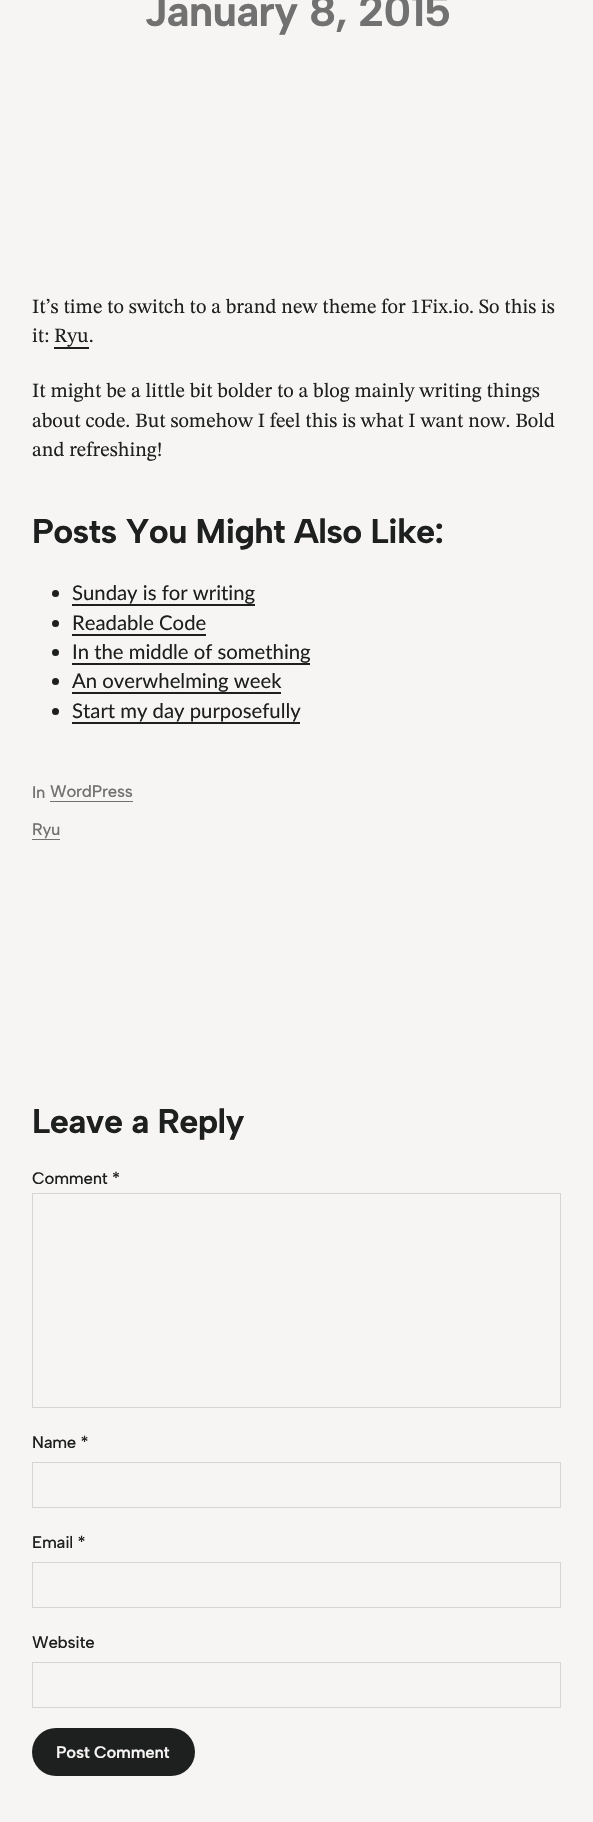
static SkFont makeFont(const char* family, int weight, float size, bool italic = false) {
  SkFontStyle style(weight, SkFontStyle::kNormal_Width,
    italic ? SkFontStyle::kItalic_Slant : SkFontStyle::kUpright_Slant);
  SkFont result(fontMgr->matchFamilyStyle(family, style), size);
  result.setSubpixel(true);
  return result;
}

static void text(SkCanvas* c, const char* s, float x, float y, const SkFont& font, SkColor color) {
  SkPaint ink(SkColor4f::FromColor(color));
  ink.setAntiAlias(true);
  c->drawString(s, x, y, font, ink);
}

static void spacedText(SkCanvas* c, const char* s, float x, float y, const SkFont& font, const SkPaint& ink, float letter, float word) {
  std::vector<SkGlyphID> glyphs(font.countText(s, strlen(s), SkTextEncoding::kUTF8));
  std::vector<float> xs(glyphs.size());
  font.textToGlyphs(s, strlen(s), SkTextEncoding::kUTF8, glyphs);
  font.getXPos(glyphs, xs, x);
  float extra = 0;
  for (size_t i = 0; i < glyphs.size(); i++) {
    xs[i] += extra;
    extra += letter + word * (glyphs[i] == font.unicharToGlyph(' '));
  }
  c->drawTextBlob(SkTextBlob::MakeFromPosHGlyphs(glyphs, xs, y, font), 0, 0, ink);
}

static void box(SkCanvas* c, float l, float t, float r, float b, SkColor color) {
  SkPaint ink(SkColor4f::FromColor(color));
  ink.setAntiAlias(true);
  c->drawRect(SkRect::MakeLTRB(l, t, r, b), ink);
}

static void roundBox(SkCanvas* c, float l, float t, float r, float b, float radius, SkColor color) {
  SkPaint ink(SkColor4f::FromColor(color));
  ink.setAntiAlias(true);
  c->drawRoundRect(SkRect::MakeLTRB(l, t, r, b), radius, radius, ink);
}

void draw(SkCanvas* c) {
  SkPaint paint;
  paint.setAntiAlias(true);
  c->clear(0xfff7f5f3);
  SkFont face1 = makeFont("Albert Sans", 700, 43.75f);
  paint.setColor(0xff707170);
  spacedText(c, "January 8, 2015", 144, 26, face1, paint, -0.9f, 0);
  SkFont face2 = makeFont("STIX Two Text", 400, 20.3f);
  text(c, "It’s time to switch to a brand new theme for 1Fix.io. So this is", 32, 313, face2, 0xff1d201f);
  text(c, "it: Ryu.", 32, 342, face2, 0xff1d201f);
  box(c, 54, 347, 89, 349, 0xff1d201f);
  text(c, "It might be a little bit bolder to a blog mainly writing things", 32, 397, face2, 0xff1d201f);
  text(c, "about code. But somehow I feel this is what I want now. Bold", 32, 427, face2, 0xff1d201f);
  text(c, "and refreshing!", 32, 456, face2, 0xff1d201f);
  SkFont face3 = makeFont("Albert Sans", 700, 34.25f);
  paint.setColor(0xff1d201f);
  spacedText(c, "Posts You Might Also Like:", 32, 543, face3, paint, -0.7f, 0);
  c->drawCircle(55.5f, 593.5f, 3.5f, paint);
  SkFont face4 = makeFont("Lato", 400, 20.3f);
  text(c, "Sunday is for writing", 72, 600, face4, 0xff1d201f);
  box(c, 72, 604, 255, 606, 0xff1d201f);
  c->drawCircle(55.5f, 623.5f, 3.5f, paint);
  text(c, "Readable Code", 72, 630, face4, 0xff1d201f);
  box(c, 72, 634, 206, 636, 0xff1d201f);
  c->drawCircle(55.5f, 652.5f, 3.5f, paint);
  text(c, "In the middle of something", 72, 659, face4, 0xff1d201f);
  box(c, 72, 663, 310, 665, 0xff1d201f);
  c->drawCircle(55.5f, 681.5f, 3.5f, paint);
  text(c, "An overwhelming week", 72, 688, face4, 0xff1d201f);
  box(c, 72, 692, 281, 694, 0xff1d201f);
  c->drawCircle(55.5f, 711.5f, 3.5f, paint);
  text(c, "Start my day purposefully", 72, 718, face4, 0xff1d201f);
  box(c, 72, 722, 300, 724, 0xff1d201f);
  SkFont face5 = makeFont("Albert Sans", 500, 16.75f);
  paint.setColor(0xff707170);
  spacedText(c, "In", 32, 798, face5, paint, -0.25f, 0);
  spacedText(c, "WordPress", 50, 797, face5, paint, -0.25f, 0);
  box(c, 50, 801, 133, 802, 0xff707170);
  spacedText(c, "Ryu", 32, 835, face5, paint, -0.25f, 0);
  box(c, 32, 839, 60, 840, 0xff707170);
  paint.setColor(0xff1d201f);
  spacedText(c, "Leave a Reply", 32, 1133, face3, paint, -0.7f, 0);
  spacedText(c, "Comment *", 32, 1184, face5, paint, -0.25f, 0);
  paint.setStyle(SkPaint::kStroke_Style);
  paint.setStrokeWidth(1);
  paint.setColor(0xffd6d5d3);
  c->drawRect(SkRect::MakeLTRB(32.5f, 1193.5f, 560.5f, 1407.5f), paint);
  paint.setStyle(SkPaint::kFill_Style);
  paint.setColor(0xff1d201f);
  spacedText(c, "Name *", 32, 1448, face5, paint, -0.25f, 0);
  paint.setStyle(SkPaint::kStroke_Style);
  paint.setColor(0xffd6d5d3);
  c->drawRect(SkRect::MakeLTRB(32.5f, 1462.5f, 560.5f, 1507.5f), paint);
  paint.setStyle(SkPaint::kFill_Style);
  paint.setColor(0xff1d201f);
  spacedText(c, "Email *", 32, 1548, face5, paint, -0.25f, 0);
  paint.setStyle(SkPaint::kStroke_Style);
  paint.setColor(0xffd6d5d3);
  c->drawRect(SkRect::MakeLTRB(32.5f, 1562.5f, 560.5f, 1607.5f), paint);
  paint.setStyle(SkPaint::kFill_Style);
  paint.setColor(0xff1d201f);
  spacedText(c, "Website", 32, 1648, face5, paint, -0.25f, 0);
  paint.setStyle(SkPaint::kStroke_Style);
  paint.setColor(0xffd6d5d3);
  c->drawRect(SkRect::MakeLTRB(32.5f, 1662.5f, 560.5f, 1707.5f), paint);
  roundBox(c, 32, 1728, 195, 1776, 24, 0xff1d201f);
  SkFont face6 = makeFont("Albert Sans", 600, 16.75f);
  paint.setStyle(SkPaint::kFill_Style);
  paint.setColor(0xfff7f5f3);
  spacedText(c, "Post Comment", 56, 1758, face6, paint, -0.25f, 0);
}
